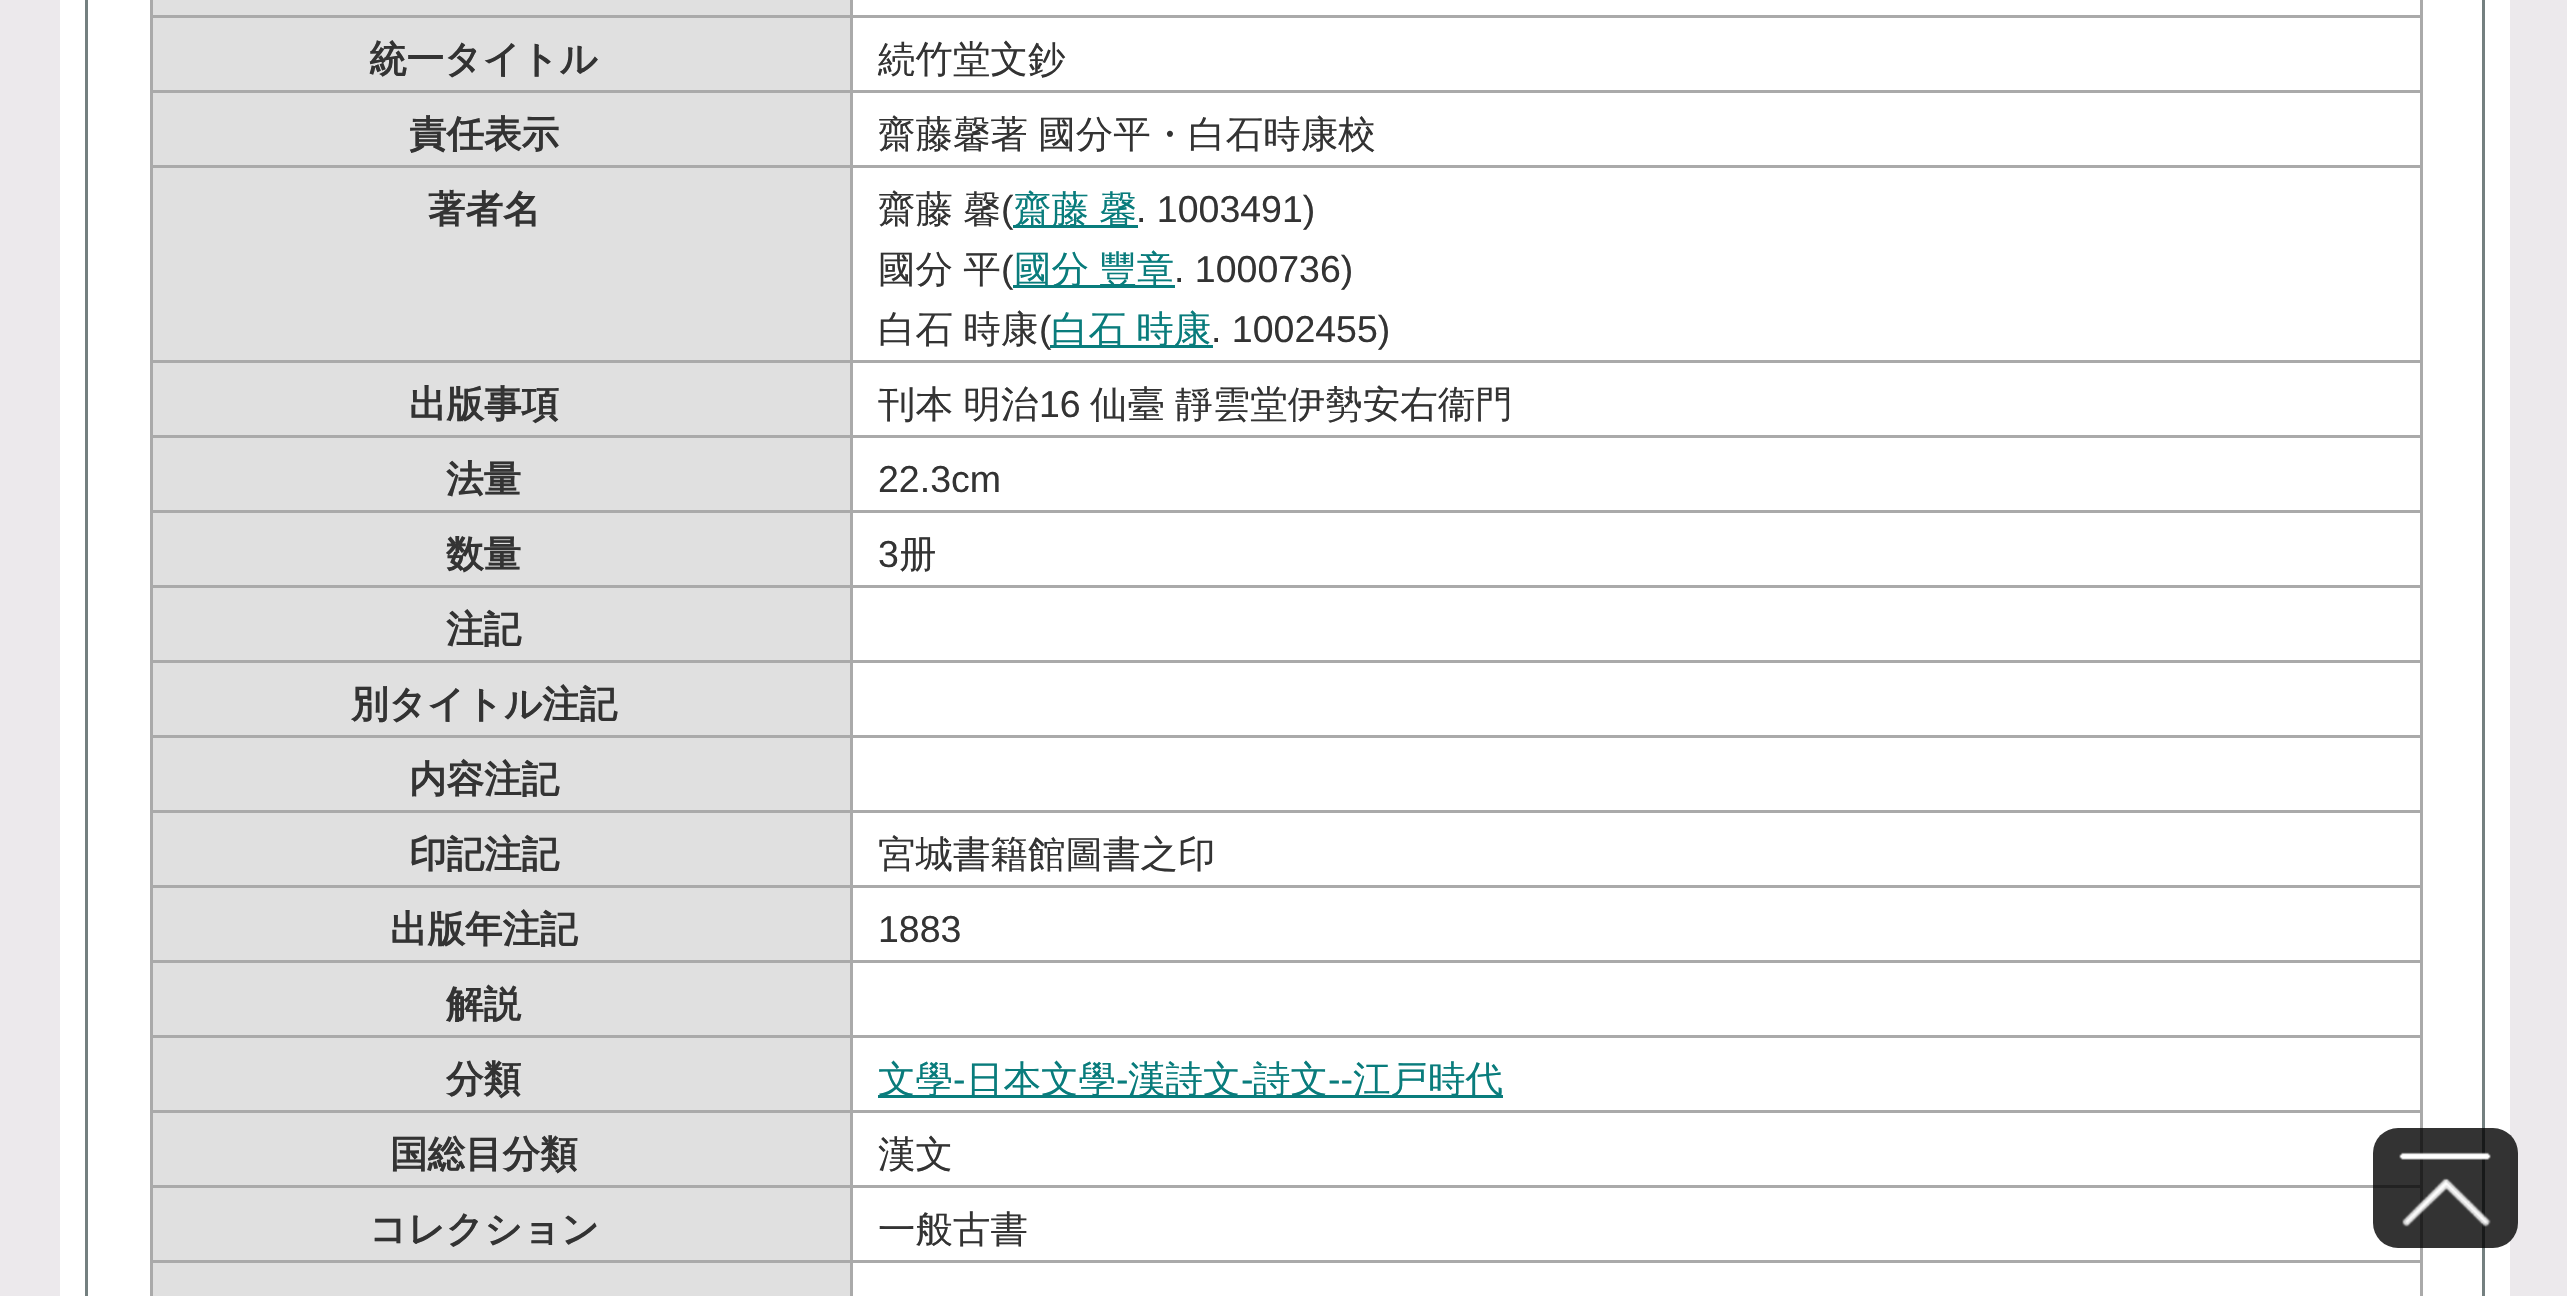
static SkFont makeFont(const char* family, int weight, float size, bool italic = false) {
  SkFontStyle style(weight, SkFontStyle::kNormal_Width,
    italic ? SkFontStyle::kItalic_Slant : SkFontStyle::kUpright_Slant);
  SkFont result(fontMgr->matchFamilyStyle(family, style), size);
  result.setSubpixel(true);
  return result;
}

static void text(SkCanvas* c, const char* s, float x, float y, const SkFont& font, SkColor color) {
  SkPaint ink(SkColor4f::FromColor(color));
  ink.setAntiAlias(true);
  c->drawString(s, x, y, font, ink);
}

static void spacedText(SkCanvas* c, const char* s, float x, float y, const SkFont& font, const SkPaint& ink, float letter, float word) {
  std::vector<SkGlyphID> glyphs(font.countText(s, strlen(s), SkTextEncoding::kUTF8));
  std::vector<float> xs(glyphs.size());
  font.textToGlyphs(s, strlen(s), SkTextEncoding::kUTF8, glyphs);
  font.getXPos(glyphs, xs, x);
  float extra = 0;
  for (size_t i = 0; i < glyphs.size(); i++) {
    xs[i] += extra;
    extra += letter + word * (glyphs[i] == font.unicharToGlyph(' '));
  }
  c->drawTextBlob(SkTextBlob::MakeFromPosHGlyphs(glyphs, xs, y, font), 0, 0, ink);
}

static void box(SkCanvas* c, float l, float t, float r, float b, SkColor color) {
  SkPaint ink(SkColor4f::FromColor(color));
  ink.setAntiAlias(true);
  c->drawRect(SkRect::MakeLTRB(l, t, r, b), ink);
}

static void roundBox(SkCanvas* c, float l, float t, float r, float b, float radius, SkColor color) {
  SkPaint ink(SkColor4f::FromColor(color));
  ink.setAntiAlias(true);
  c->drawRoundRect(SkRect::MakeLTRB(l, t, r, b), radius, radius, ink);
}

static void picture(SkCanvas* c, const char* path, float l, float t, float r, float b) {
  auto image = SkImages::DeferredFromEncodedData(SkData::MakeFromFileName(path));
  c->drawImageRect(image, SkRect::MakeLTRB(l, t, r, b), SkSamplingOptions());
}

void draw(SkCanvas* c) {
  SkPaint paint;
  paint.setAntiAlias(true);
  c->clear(0xffece9ec);
  box(c, 60, 0, 2510, 1296, 0xffffffff);
  paint.setStyle(SkPaint::kStroke_Style);
  paint.setStrokeWidth(3);
  paint.setColor(0xff748080);
  c->drawRect(SkRect::MakeLTRB(86.5f, -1.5f, 2483.5f, 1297.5f), paint);
  box(c, 153, 0, 850, 15, 0xffe0e0e0);
  box(c, 2420, 0, 2423, 1296, 0xffaaaaaa);
  box(c, 150, 15, 2423, 18, 0xffaaaaaa);
  box(c, 150, 0, 153, 18, 0xffaaaaaa);
  box(c, 850, 0, 853, 15, 0xffaaaaaa);
  box(c, 153, 18, 850, 90, 0xffe0e0e0);
  box(c, 150, 90, 2423, 93, 0xffaaaaaa);
  box(c, 150, 18, 153, 93, 0xffaaaaaa);
  SkFont face1 = makeFont("WenQuanYi Zen Hei", 700, 37.5f);
  text(c, "統一タイトル", 369, 72, face1, 0xff333333);
  box(c, 850, 18, 853, 90, 0xffaaaaaa);
  SkFont face2 = makeFont("WenQuanYi Zen Hei", 500, 37.5f);
  text(c, "続竹堂文鈔", 878, 72, face2, 0xff333333);
  box(c, 153, 93, 850, 165, 0xffe0e0e0);
  box(c, 150, 165, 2423, 168, 0xffaaaaaa);
  box(c, 150, 93, 153, 168, 0xffaaaaaa);
  text(c, "責任表示", 409, 147, face1, 0xff333333);
  box(c, 850, 93, 853, 165, 0xffaaaaaa);
  paint.setStyle(SkPaint::kFill_Style);
  paint.setColor(0xff333333);
  spacedText(c, "齋藤馨著 國分平・白石時康校", 878, 147, face2, paint, 0, -1);
  box(c, 153, 168, 850, 360, 0xffe0e0e0);
  box(c, 150, 360, 2423, 363, 0xffaaaaaa);
  box(c, 150, 168, 153, 363, 0xffaaaaaa);
  text(c, "著者名", 428, 222, face1, 0xff333333);
  box(c, 850, 168, 853, 360, 0xffaaaaaa);
  spacedText(c, "齋藤 馨", 878, 222, face2, paint, 0, -1);
  SkFont face3 = makeFont("Liberation Sans", 400, 37.5f);
  text(c, "(", 1001, 222, face3, 0xff333333);
  box(c, 1013, 225, 1138, 228, 0xff097c7c);
  paint.setColor(0xff097c7c);
  spacedText(c, "齋藤 馨", 1014, 222, face2, paint, 0, -1);
  text(c, ". 1003491)", 1136, 222, face3, 0xff333333);
  paint.setColor(0xff333333);
  spacedText(c, "國分 平", 878, 282, face2, paint, 0, -1);
  text(c, "(", 1001, 282, face3, 0xff333333);
  box(c, 1013, 285, 1175, 288, 0xff097c7c);
  paint.setColor(0xff097c7c);
  spacedText(c, "國分 豐章", 1014, 282, face2, paint, 0, -1);
  text(c, ". 1000736)", 1174, 282, face3, 0xff333333);
  paint.setColor(0xff333333);
  spacedText(c, "白石 時康", 878, 342, face2, paint, 0, -1);
  text(c, "(", 1039, 342, face3, 0xff333333);
  box(c, 1050, 345, 1213, 348, 0xff097c7c);
  paint.setColor(0xff097c7c);
  spacedText(c, "白石 時康", 1051, 342, face2, paint, 0, -1);
  text(c, ". 1002455)", 1211, 342, face3, 0xff333333);
  box(c, 153, 363, 850, 435, 0xffe0e0e0);
  box(c, 150, 435, 2423, 438, 0xffaaaaaa);
  box(c, 150, 363, 153, 438, 0xffaaaaaa);
  text(c, "出版事項", 409, 417, face1, 0xff333333);
  box(c, 850, 363, 853, 435, 0xffaaaaaa);
  paint.setColor(0xff333333);
  spacedText(c, "刊本 明治", 878, 417, face2, paint, 0, -1);
  text(c, "16", 1039, 417, face3, 0xff333333);
  spacedText(c, "仙臺 靜雲堂伊勢安右衞門", 1090, 417, face2, paint, 0, -1);
  box(c, 153, 438, 850, 510, 0xffe0e0e0);
  box(c, 150, 510, 2423, 513, 0xffaaaaaa);
  box(c, 150, 438, 153, 513, 0xffaaaaaa);
  text(c, "法量", 446, 492, face1, 0xff333333);
  box(c, 850, 438, 853, 510, 0xffaaaaaa);
  text(c, "22.3cm", 878, 492, face3, 0xff333333);
  box(c, 153, 513, 850, 585, 0xffe0e0e0);
  box(c, 150, 585, 2423, 588, 0xffaaaaaa);
  box(c, 150, 513, 153, 588, 0xffaaaaaa);
  text(c, "数量", 446, 567, face1, 0xff333333);
  box(c, 850, 513, 853, 585, 0xffaaaaaa);
  text(c, "3", 878, 567, face3, 0xff333333);
  text(c, "册", 899, 567, face2, 0xff333333);
  box(c, 153, 588, 850, 660, 0xffe0e0e0);
  box(c, 150, 660, 2423, 663, 0xffaaaaaa);
  box(c, 150, 588, 153, 663, 0xffaaaaaa);
  text(c, "注記", 446, 642, face1, 0xff333333);
  box(c, 850, 588, 853, 660, 0xffaaaaaa);
  box(c, 153, 663, 850, 735, 0xffe0e0e0);
  box(c, 150, 735, 2423, 738, 0xffaaaaaa);
  box(c, 150, 663, 153, 738, 0xffaaaaaa);
  text(c, "別タイトル注記", 351, 717, face1, 0xff333333);
  box(c, 850, 663, 853, 735, 0xffaaaaaa);
  box(c, 153, 738, 850, 810, 0xffe0e0e0);
  box(c, 150, 810, 2423, 813, 0xffaaaaaa);
  box(c, 150, 738, 153, 813, 0xffaaaaaa);
  text(c, "内容注記", 409, 792, face1, 0xff333333);
  box(c, 850, 738, 853, 810, 0xffaaaaaa);
  box(c, 153, 813, 850, 885, 0xffe0e0e0);
  box(c, 150, 885, 2423, 888, 0xffaaaaaa);
  box(c, 150, 813, 153, 888, 0xffaaaaaa);
  text(c, "印記注記", 409, 867, face1, 0xff333333);
  box(c, 850, 813, 853, 885, 0xffaaaaaa);
  text(c, "宮城書籍館圖書之印", 878, 867, face2, 0xff333333);
  box(c, 153, 888, 850, 960, 0xffe0e0e0);
  box(c, 150, 960, 2423, 963, 0xffaaaaaa);
  box(c, 150, 888, 153, 963, 0xffaaaaaa);
  text(c, "出版年注記", 390, 942, face1, 0xff333333);
  box(c, 850, 888, 853, 960, 0xffaaaaaa);
  text(c, "1883", 878, 942, face3, 0xff333333);
  box(c, 153, 963, 850, 1035, 0xffe0e0e0);
  box(c, 150, 1035, 2423, 1038, 0xffaaaaaa);
  box(c, 150, 963, 153, 1038, 0xffaaaaaa);
  text(c, "解説", 446, 1017, face1, 0xff333333);
  box(c, 850, 963, 853, 1035, 0xffaaaaaa);
  box(c, 153, 1038, 850, 1110, 0xffe0e0e0);
  box(c, 150, 1110, 2423, 1113, 0xffaaaaaa);
  box(c, 150, 1038, 153, 1113, 0xffaaaaaa);
  text(c, "分類", 446, 1092, face1, 0xff333333);
  box(c, 850, 1038, 853, 1110, 0xffaaaaaa);
  box(c, 878, 1095, 1503, 1098, 0xff097c7c);
  text(c, "文學", 878, 1092, face2, 0xff097c7c);
  text(c, "-", 953, 1092, face3, 0xff097c7c);
  text(c, "日本文學", 966, 1092, face2, 0xff097c7c);
  text(c, "-", 1116, 1092, face3, 0xff097c7c);
  text(c, "漢詩文", 1128, 1092, face2, 0xff097c7c);
  text(c, "-", 1241, 1092, face3, 0xff097c7c);
  text(c, "詩文", 1253, 1092, face2, 0xff097c7c);
  text(c, "--", 1328, 1092, face3, 0xff097c7c);
  text(c, "江戸時代", 1353, 1092, face2, 0xff097c7c);
  box(c, 153, 1113, 850, 1185, 0xffe0e0e0);
  box(c, 150, 1185, 2423, 1188, 0xffaaaaaa);
  box(c, 150, 1113, 153, 1188, 0xffaaaaaa);
  text(c, "国総目分類", 390, 1167, face1, 0xff333333);
  box(c, 850, 1113, 853, 1185, 0xffaaaaaa);
  text(c, "漢文", 878, 1167, face2, 0xff333333);
  box(c, 153, 1188, 850, 1260, 0xffe0e0e0);
  box(c, 150, 1260, 2423, 1263, 0xffaaaaaa);
  box(c, 150, 1188, 153, 1296, 0xffaaaaaa);
  text(c, "コレクション", 369, 1242, face1, 0xff333333);
  box(c, 850, 1188, 853, 1260, 0xffaaaaaa);
  text(c, "一般古書", 878, 1242, face2, 0xff333333);
  box(c, 153, 1263, 850, 1296, 0xffe0e0e0);
  box(c, 850, 1263, 853, 1296, 0xffaaaaaa);
  roundBox(c, 2373, 1128, 2518, 1248, 25, 0xcc000000);
  picture(c, "img_01.png", 2399, 1152, 2491, 1227);
}
